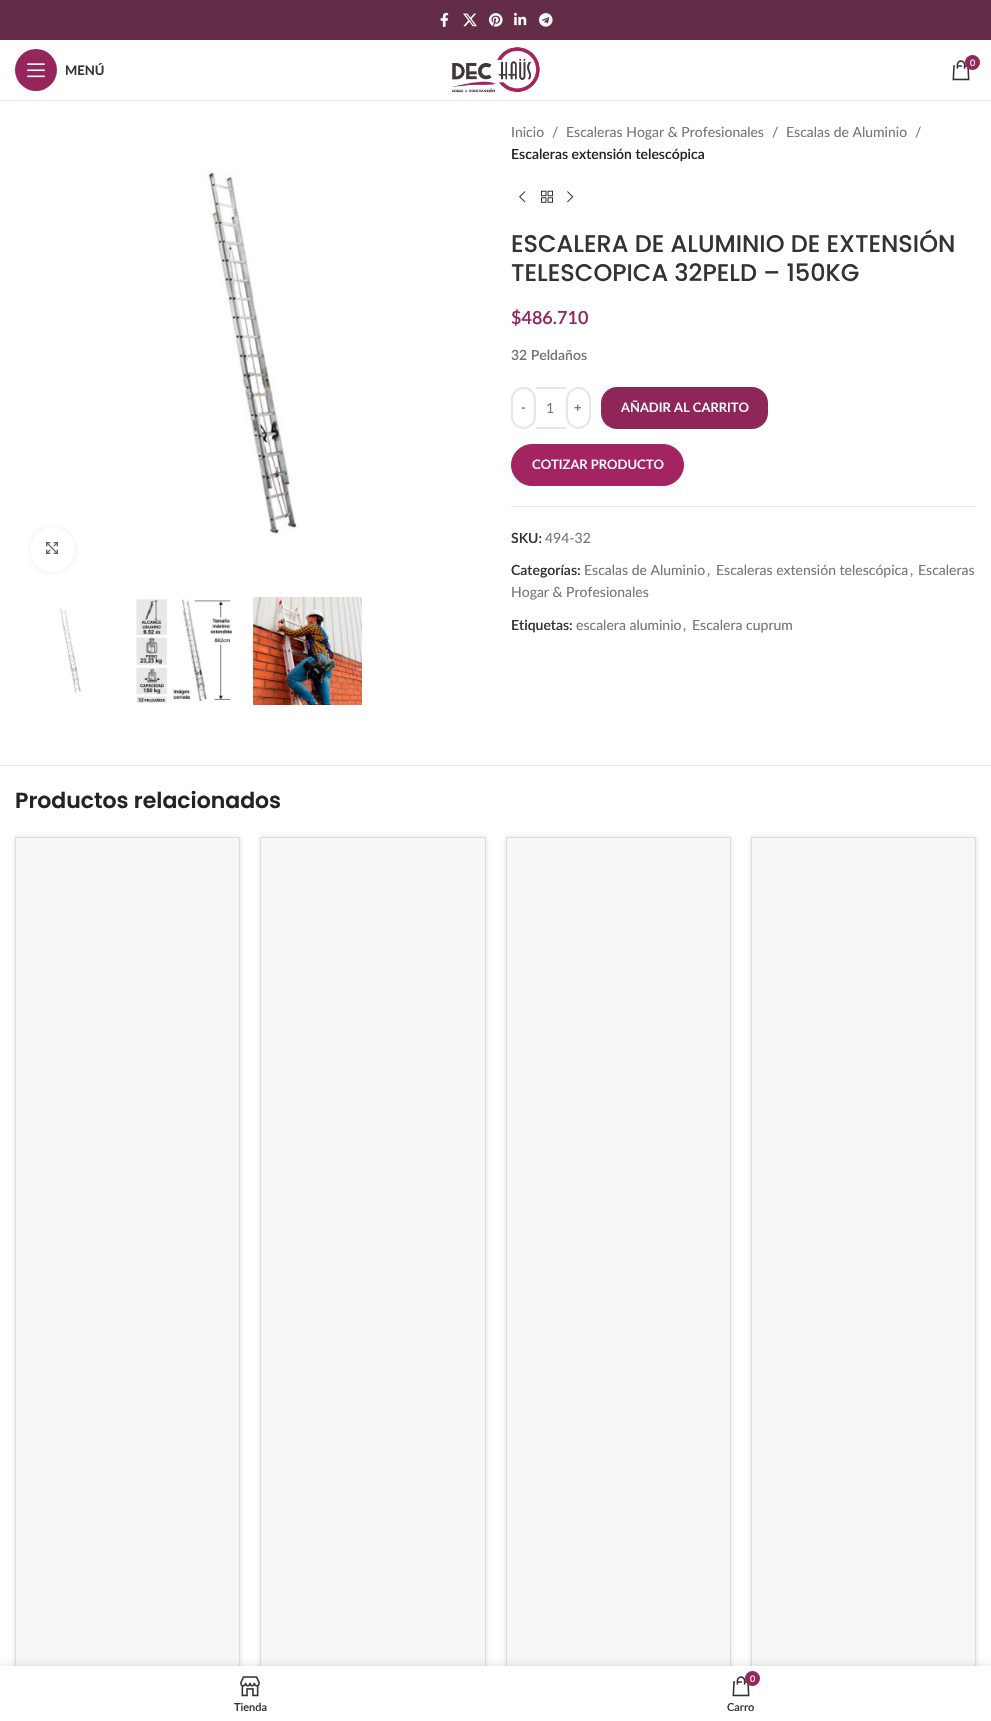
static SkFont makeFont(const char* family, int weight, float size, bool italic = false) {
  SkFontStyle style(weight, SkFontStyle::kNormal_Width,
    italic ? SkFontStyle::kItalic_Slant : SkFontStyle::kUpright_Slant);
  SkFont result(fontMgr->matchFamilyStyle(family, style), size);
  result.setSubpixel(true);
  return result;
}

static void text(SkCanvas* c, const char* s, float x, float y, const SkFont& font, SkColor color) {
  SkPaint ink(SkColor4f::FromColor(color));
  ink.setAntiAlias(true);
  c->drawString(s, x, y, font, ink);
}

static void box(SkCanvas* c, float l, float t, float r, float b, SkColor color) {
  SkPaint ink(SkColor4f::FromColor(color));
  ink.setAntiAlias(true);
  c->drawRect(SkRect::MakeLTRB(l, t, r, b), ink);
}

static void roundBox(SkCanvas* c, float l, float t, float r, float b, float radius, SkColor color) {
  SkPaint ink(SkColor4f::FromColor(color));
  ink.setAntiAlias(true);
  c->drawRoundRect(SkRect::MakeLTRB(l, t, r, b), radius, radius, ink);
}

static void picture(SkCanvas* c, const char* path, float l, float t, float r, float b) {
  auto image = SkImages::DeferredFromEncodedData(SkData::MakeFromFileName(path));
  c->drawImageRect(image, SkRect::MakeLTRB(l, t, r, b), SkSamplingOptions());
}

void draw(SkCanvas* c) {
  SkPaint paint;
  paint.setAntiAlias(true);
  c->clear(0xffffffff);
  box(c, 0, 0, 991, 40, 0xff632c47);
  picture(c, "img_01.png", 440, 12, 449, 27);
  picture(c, "img_02.png", 463, 13, 477, 27);
  picture(c, "img_03.png", 489, 13, 503, 27);
  picture(c, "img_04.png", 514, 12, 527, 26);
  picture(c, "img_05.png", 539, 13, 553, 27);
  box(c, 0, 100, 991, 101, 0xffe6e6e6);
  paint.setColor(0xff96255b);
  c->drawCircle(36, 70, 21, paint);
  picture(c, "img_06.png", 27, 63, 45, 78);
  SkFont face1 = makeFont("Lato", 700, 13);
  text(c, "MENÚ", 65, 75, face1, 0xff333333);
  picture(c, "img_07.png", 452, 47, 540, 93);
  picture(c, "img_08.png", 952, 60, 970, 81);
  c->drawCircle(972.5f, 62.5f, 7.5f, paint);
  SkFont face2 = makeFont("Lato", 400, 9);
  text(c, "0", 970, 66, face2, 0xffffffff);
  picture(c, "img_09.png", 203, 170, 299, 537);
  paint.setColor(0x14000000);
  paint.setMaskFilter(SkMaskFilter::MakeBlur(kNormal_SkBlurStyle, 2.5f));
  c->drawRoundRect(SkRect::MakeLTRB(30, 527, 75, 572), 22.5f, 22.5f, paint);
  paint.setMaskFilter(nullptr);
  paint.setColor(0xffffffff);
  c->drawCircle(52.5f, 549.5f, 22.5f, paint);
  picture(c, "img_10.png", 46, 542, 58, 554);
  picture(c, "img_11.png", 60, 609, 81, 693);
  picture(c, "img_12.png", 136, 599, 232, 703);
  picture(c, "img_13.png", 253, 597, 362, 705);
  SkFont face3 = makeFont("Lato", 400, 14);
  text(c, "Inicio", 511, 137, face3, 0xff767676);
  text(c, "/", 552, 137, face3, 0xff767676);
  text(c, "Escaleras Hogar & Profesionales", 566, 137, face3, 0xff767676);
  text(c, "/", 772, 137, face3, 0xff767676);
  text(c, "Escalas de Aluminio", 786, 137, face3, 0xff767676);
  text(c, "/", 915, 137, face3, 0xff767676);
  SkFont face4 = makeFont("Lato", 600, 14);
  text(c, "Escaleras extensión telescópica", 511, 159, face4, 0xff242424);
  picture(c, "img_14.png", 519, 191, 526, 203);
  picture(c, "img_15.png", 541, 190, 553, 203);
  picture(c, "img_16.png", 567, 191, 574, 203);
  SkFont face5 = makeFont("Poppins", 500, 24);
  text(c, "ESCALERA DE ALUMINIO DE EXTENSIÓN", 511, 252, face5, 0xff333333);
  text(c, "TELESCOPICA 32PELD – 150KG", 511, 281, face5, 0xff333333);
  SkFont face6 = makeFont("Lato", 600, 18);
  text(c, "$486.710", 511, 324, face6, 0xff96255b);
  text(c, "32 Peldaños", 511, 360, face4, 0xff767676);
  paint.setStyle(SkPaint::kStroke_Style);
  paint.setStrokeWidth(2);
  paint.setColor(0xffe6e6e6);
  c->drawRoundRect(SkRect::MakeLTRB(512, 388, 535, 428), 11.5f, 11.5f, paint);
  SkFont face7 = makeFont("Lato", 600, 13);
  text(c, "-", 521, 412, face7, 0xff767676);
  box(c, 536, 387, 566, 389, 0xffe6e6e6);
  box(c, 536, 427, 566, 429, 0xffe6e6e6);
  text(c, "1", 546, 413, face3, 0xff767676);
  c->drawRoundRect(SkRect::MakeLTRB(567, 388, 590, 428), 11.5f, 11.5f, paint);
  text(c, "+", 574, 412, face7, 0xff767676);
  roundBox(c, 601, 387, 768, 429, 16, 0xff8f2658);
  text(c, "AÑADIR AL CARRITO", 621, 412, face7, 0xffffffff);
  paint.setStyle(SkPaint::kFill_Style);
  paint.setColor(0xffa32460);
  c->drawRoundRect(SkRect::MakeLTRB(511.5f, 444.5f, 683.5f, 485.5f), 20.5f, 20.5f, paint);
  paint.setStyle(SkPaint::kStroke_Style);
  paint.setStrokeWidth(1);
  c->drawRoundRect(SkRect::MakeLTRB(511.5f, 444.5f, 683.5f, 485.5f), 20.5f, 20.5f, paint);
  text(c, "COTIZAR PRODUCTO", 532, 469, face7, 0xffffffff);
  box(c, 511, 506, 976, 507, 0xffe4e4e4);
  text(c, "SKU:", 511, 543, face4, 0xff333333);
  text(c, "494-32", 545, 543, face3, 0xff767676);
  text(c, "Categorías:", 511, 575, face4, 0xff333333);
  text(c, "Escalas de Aluminio", 584, 575, face3, 0xff767676);
  text(c, ",", 707, 575, face3, 0xff767676);
  text(c, "Escaleras extensión telescópica", 716, 575, face3, 0xff767676);
  text(c, ",", 910, 575, face3, 0xff767676);
  text(c, "Escaleras", 918, 575, face3, 0xff767676);
  text(c, "Hogar & Profesionales", 511, 597, face3, 0xff767676);
  text(c, "Etiquetas:", 511, 630, face4, 0xff333333);
  text(c, "escalera aluminio", 576, 630, face3, 0xff767676);
  text(c, ",", 683, 630, face3, 0xff767676);
  text(c, "Escalera cuprum", 692, 630, face3, 0xff767676);
  box(c, 0, 765, 991, 766, 0xffe4e4e4);
  SkFont face8 = makeFont("Poppins", 600, 22);
  text(c, "Productos relacionados", 15, 808, face8, 0xff242424);
  paint.setStyle(SkPaint::kFill_Style);
  paint.setColor(0x1f000000);
  paint.setMaskFilter(SkMaskFilter::MakeBlur(kNormal_SkBlurStyle, 2));
  c->drawRect(SkRect::MakeLTRB(15, 837, 240, 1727), paint);
  paint.setMaskFilter(nullptr);
  box(c, 16, 838, 239, 1666, 0xfff7f7f7);
  paint.setStyle(SkPaint::kStroke_Style);
  paint.setColor(0xffdddddd);
  c->drawRect(SkRect::MakeLTRB(15.5f, 837.5f, 239.5f, 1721.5f), paint);
  paint.setStyle(SkPaint::kFill_Style);
  paint.setColor(0x1f000000);
  paint.setMaskFilter(SkMaskFilter::MakeBlur(kNormal_SkBlurStyle, 2));
  c->drawRect(SkRect::MakeLTRB(260, 837, 486, 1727), paint);
  paint.setMaskFilter(nullptr);
  box(c, 261, 838, 485, 1666, 0xfff7f7f7);
  paint.setStyle(SkPaint::kStroke_Style);
  paint.setColor(0xffdddddd);
  c->drawRect(SkRect::MakeLTRB(260.5f, 837.5f, 485.5f, 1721.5f), paint);
  paint.setStyle(SkPaint::kFill_Style);
  paint.setColor(0x1f000000);
  paint.setMaskFilter(SkMaskFilter::MakeBlur(kNormal_SkBlurStyle, 2));
  c->drawRect(SkRect::MakeLTRB(506, 837, 731, 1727), paint);
  paint.setMaskFilter(nullptr);
  box(c, 507, 838, 730, 1666, 0xfff7f7f7);
  paint.setStyle(SkPaint::kStroke_Style);
  paint.setColor(0xffdddddd);
  c->drawRect(SkRect::MakeLTRB(506.5f, 837.5f, 730.5f, 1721.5f), paint);
  paint.setStyle(SkPaint::kFill_Style);
  paint.setColor(0x1f000000);
  paint.setMaskFilter(SkMaskFilter::MakeBlur(kNormal_SkBlurStyle, 2));
  c->drawRect(SkRect::MakeLTRB(751, 837, 976, 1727), paint);
  paint.setMaskFilter(nullptr);
  box(c, 752, 838, 975, 1666, 0xfff7f7f7);
  paint.setStyle(SkPaint::kStroke_Style);
  paint.setColor(0xffdddddd);
  c->drawRect(SkRect::MakeLTRB(751.5f, 837.5f, 975.5f, 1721.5f), paint);
  paint.setStyle(SkPaint::kFill_Style);
  paint.setColor(0x1f000000);
  paint.setMaskFilter(SkMaskFilter::MakeBlur(kNormal_SkBlurStyle, 4.5f));
  c->drawRect(SkRect::MakeLTRB(0, 1666, 991, 1721), paint);
  paint.setMaskFilter(nullptr);
  box(c, 0, 1666, 991, 1721, 0xffffffff);
  picture(c, "img_17.png", 240, 1676, 260, 1697);
  SkFont face9 = makeFont("Lato", 600, 11);
  text(c, "Tienda", 234, 1711, face9, 0xff333333);
  picture(c, "img_08.png", 732, 1676, 750, 1697);
  paint.setColor(0xff96255b);
  c->drawCircle(752.5f, 1678.5f, 7.5f, paint);
  text(c, "0", 750, 1682, face2, 0xffffffff);
  text(c, "Carro", 727, 1711, face9, 0xff333333);
}
